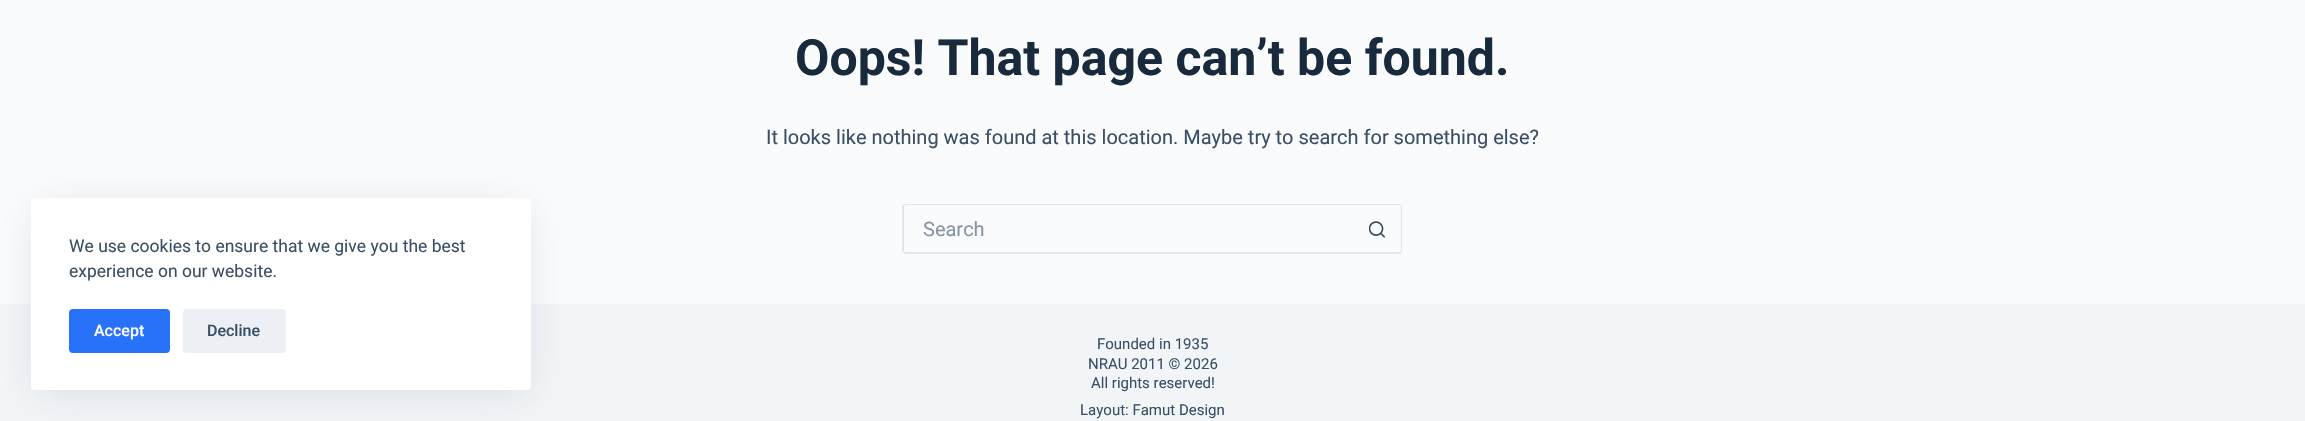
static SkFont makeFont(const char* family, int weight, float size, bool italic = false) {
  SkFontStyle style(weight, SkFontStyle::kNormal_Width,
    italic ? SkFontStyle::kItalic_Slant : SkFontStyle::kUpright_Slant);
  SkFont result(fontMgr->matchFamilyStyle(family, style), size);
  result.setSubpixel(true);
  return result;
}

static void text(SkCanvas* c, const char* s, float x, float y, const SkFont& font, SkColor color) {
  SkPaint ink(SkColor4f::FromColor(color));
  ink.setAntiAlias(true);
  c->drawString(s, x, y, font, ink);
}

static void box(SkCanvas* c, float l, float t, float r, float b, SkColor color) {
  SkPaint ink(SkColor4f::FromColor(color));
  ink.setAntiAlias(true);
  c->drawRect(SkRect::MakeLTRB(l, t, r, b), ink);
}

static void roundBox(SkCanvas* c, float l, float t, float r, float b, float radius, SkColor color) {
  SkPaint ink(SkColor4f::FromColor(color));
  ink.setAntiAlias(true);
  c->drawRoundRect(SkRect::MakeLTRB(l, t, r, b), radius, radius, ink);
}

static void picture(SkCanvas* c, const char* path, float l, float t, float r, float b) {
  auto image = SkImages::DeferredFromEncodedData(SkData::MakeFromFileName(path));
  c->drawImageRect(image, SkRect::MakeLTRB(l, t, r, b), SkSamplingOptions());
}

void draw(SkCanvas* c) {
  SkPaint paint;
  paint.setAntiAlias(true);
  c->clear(0xfffafbfc);
  box(c, 0, 304, 2305, 421, 0xfff2f5f7);
  paint.setColor(0x26223865);
  paint.setMaskFilter(SkMaskFilter::MakeBlur(kNormal_SkBlurStyle, 19));
  c->drawRect(SkRect::MakeLTRB(38, 210, 525, 390), paint);
  paint.setMaskFilter(nullptr);
  roundBox(c, 31, 198, 531, 390, 4, 0xffffffff);
  SkFont face1 = makeFont("Roboto", 400, 17.5f);
  text(c, "We use cookies to ensure that we give you the best", 69, 252, face1, 0xff3a4f66);
  text(c, "experience on our website.", 69, 277, face1, 0xff3a4f66);
  roundBox(c, 69, 309, 170, 353, 4, 0xff2872fa);
  SkFont face2 = makeFont("Roboto", 500, 16);
  text(c, "Accept", 94, 336, face2, 0xffffffff);
  roundBox(c, 183, 309, 286, 353, 4, 0xffeceff3);
  text(c, "Decline", 207, 336, face2, 0xff3a4f66);
  SkFont face3 = makeFont("Roboto", 700, 50);
  text(c, "Oops! That page can’t be found.", 795, 75, face3, 0xff192a3d);
  SkFont face4 = makeFont("Roboto", 400, 20);
  text(c, "It looks like nothing was found at this location. Maybe try to search for something else?", 766, 144, face4, 0xff3a4f66);
  paint.setColor(0xffe1e8ed);
  c->drawPath(SkPathBuilder(SkPathFillType::kEvenOdd).moveTo(906, 204).lineTo(1352, 204).lineTo(1352, 254).lineTo(906, 254).cubicTo(904, 254, 902, 252, 902, 250).lineTo(902, 208).cubicTo(902, 205, 904, 204, 906, 204).close().moveTo(906, 205).lineTo(1352, 205).lineTo(1352, 252).lineTo(906, 252).cubicTo(905, 252, 904, 251, 904, 250).lineTo(904, 208).cubicTo(904, 206, 905, 205, 906, 205).close().detach(), paint);
  text(c, "Search", 923, 236, face4, 0xff8794a2);
  c->drawPath(SkPathBuilder(SkPathFillType::kEvenOdd).moveTo(1352, 204).lineTo(1399, 204).cubicTo(1401, 204, 1402, 205, 1402, 208).lineTo(1402, 250).cubicTo(1402, 252, 1401, 254, 1399, 254).lineTo(1352, 254).close().moveTo(1352, 205).lineTo(1399, 205).cubicTo(1400, 205, 1401, 206, 1401, 208).lineTo(1401, 250).cubicTo(1401, 251, 1400, 252, 1399, 252).lineTo(1352, 252).close().detach(), paint);
  picture(c, "img_01.png", 1369, 221, 1385, 238);
  SkFont face5 = makeFont("Roboto", 400, 15);
  text(c, "Founded in 1935", 1097, 349, face5, 0xff3a4f66);
  text(c, "NRAU 2011 © 2026", 1088, 369, face5, 0xff3a4f66);
  text(c, "All rights reserved!", 1091, 388, face5, 0xff3a4f66);
  text(c, "Layout: Famut Design", 1080, 415, face5, 0xff3a4f66);
}
